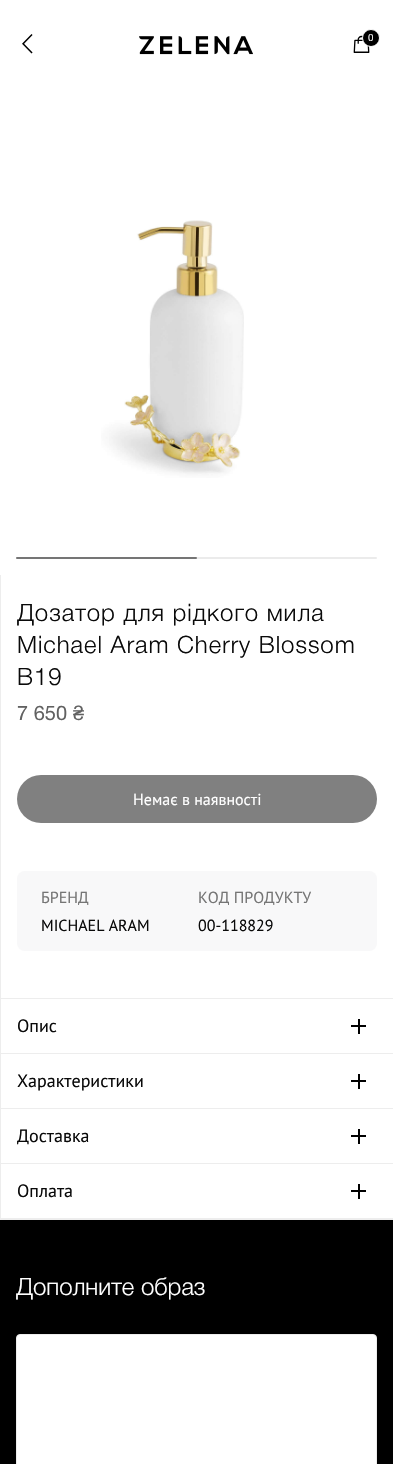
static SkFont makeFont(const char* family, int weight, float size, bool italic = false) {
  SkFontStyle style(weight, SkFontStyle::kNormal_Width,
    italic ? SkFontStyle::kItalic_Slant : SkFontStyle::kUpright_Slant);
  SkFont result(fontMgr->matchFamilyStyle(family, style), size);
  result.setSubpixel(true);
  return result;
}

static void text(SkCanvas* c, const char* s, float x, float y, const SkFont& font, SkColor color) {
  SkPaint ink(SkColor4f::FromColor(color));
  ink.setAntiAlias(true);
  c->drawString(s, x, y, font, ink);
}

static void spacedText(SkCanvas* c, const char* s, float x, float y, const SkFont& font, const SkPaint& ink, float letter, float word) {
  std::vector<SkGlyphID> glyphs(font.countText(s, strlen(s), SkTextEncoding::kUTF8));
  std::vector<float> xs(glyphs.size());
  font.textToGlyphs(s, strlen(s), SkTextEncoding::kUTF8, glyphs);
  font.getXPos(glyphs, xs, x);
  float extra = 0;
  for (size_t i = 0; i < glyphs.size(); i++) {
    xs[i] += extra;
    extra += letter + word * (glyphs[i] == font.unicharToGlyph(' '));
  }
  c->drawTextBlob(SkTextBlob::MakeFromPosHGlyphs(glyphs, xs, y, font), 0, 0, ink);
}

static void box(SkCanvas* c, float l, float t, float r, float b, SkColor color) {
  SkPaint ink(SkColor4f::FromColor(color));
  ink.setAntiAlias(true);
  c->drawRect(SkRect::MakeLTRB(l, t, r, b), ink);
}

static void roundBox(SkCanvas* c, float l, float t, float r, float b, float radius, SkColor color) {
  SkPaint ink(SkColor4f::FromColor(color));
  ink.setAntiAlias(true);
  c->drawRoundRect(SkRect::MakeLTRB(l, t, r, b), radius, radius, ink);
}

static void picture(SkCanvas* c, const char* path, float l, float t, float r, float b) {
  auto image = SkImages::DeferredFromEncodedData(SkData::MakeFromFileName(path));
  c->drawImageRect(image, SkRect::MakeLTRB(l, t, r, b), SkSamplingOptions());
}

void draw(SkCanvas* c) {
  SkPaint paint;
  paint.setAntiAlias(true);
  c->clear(0xffffffff);
  picture(c, "img_01.png", 22, 34, 33, 54);
  picture(c, "img_02.png", 139, 36, 253, 55);
  picture(c, "img_03.png", 353, 35, 370, 53);
  paint.setColor(0xff000000);
  c->drawCircle(371, 38, 8.5f, paint);
  paint.setStyle(SkPaint::kStroke_Style);
  paint.setStrokeWidth(1);
  paint.setColor(0xffffffff);
  c->drawCircle(371, 38, 8.5f, paint);
  SkFont face1 = makeFont("PT Sans", 400, 10);
  text(c, "0", 368, 41, face1, 0xffffffff);
  picture(c, "img_04.png", 101, 220, 244, 478);
  roundBox(c, 16, 557, 377, 559, 1, 0xffebebeb);
  roundBox(c, 16, 557, 197, 559, 1, 0x80000000);
  box(c, 0, 575, 1, 1220, 0xffededed);
  SkFont face2 = makeFont("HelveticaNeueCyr", 300, 24);
  paint.setStyle(SkPaint::kFill_Style);
  paint.setColor(0xff0a0a0a);
  spacedText(c, "Дозатор для рідкого мила", 17, 621, face2, paint, 0.95f, 0);
  spacedText(c, "Michael Aram Cherry Blossom", 17, 653, face2, paint, 0.95f, 0);
  spacedText(c, "В19", 17, 685, face2, paint, 0.95f, 0);
  SkFont face3 = makeFont("HelveticaNeueCyr", 400, 20);
  text(c, "7 650", 17, 720, face3, 0xff616161);
  SkFont face4 = makeFont("Liberation Sans", 400, 20);
  text(c, "₴", 73, 720, face4, 0xff616161);
  roundBox(c, 17, 775, 377, 823, 24, 0xff808080);
  SkFont face5 = makeFont("PT Sans", 400, 16);
  text(c, "Немає в наявності", 133, 805, face5, 0xffffffff);
  roundBox(c, 17, 871, 377, 951, 8, 0xfff8f8f9);
  text(c, "БРЕНД", 41, 903, face5, 0xff757575);
  text(c, "MICHAEL ARAM", 41, 931, face5, 0xff0a0a0a);
  text(c, "КОД ПРОДУКТУ", 198, 903, face5, 0xff757575);
  text(c, "00-118829", 198, 931, face5, 0xff0a0a0a);
  box(c, 1, 998, 393, 999, 0xffededed);
  SkFont face6 = makeFont("PT Sans", 400, 18);
  text(c, "Опис", 17, 1032, face6, 0xff0a0a0a);
  box(c, 351, 1025, 366, 1027, 0xff000000);
  box(c, 358, 1019, 360, 1034, 0xff000000);
  box(c, 1, 1053, 393, 1054, 0xffededed);
  text(c, "Характеристики", 17, 1087, face6, 0xff0a0a0a);
  box(c, 351, 1080, 366, 1082, 0xff000000);
  box(c, 358, 1074, 360, 1089, 0xff000000);
  box(c, 1, 1108, 393, 1109, 0xffededed);
  text(c, "Доставка", 17, 1142, face6, 0xff0a0a0a);
  box(c, 351, 1135, 366, 1137, 0xff000000);
  box(c, 358, 1129, 360, 1144, 0xff000000);
  box(c, 1, 1163, 393, 1164, 0xffededed);
  text(c, "Оплата", 17, 1197, face6, 0xff0a0a0a);
  box(c, 351, 1190, 366, 1192, 0xff000000);
  box(c, 358, 1184, 360, 1199, 0xff000000);
  box(c, 1, 1218, 393, 1220, 0xffededed);
  box(c, 0, 1220, 393, 1464, 0xff000000);
  text(c, "Дополните образ", 16, 1295, face2, 0xffffffff);
  paint.setColor(0xffffffff);
  c->drawRoundRect(SkRect::MakeLTRB(16.5f, 1334.5f, 376.5f, 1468.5f), 3.5f, 3.5f, paint);
  paint.setStyle(SkPaint::kStroke_Style);
  paint.setColor(0xffededed);
  c->drawRoundRect(SkRect::MakeLTRB(16.5f, 1334.5f, 376.5f, 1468.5f), 3.5f, 3.5f, paint);
}
